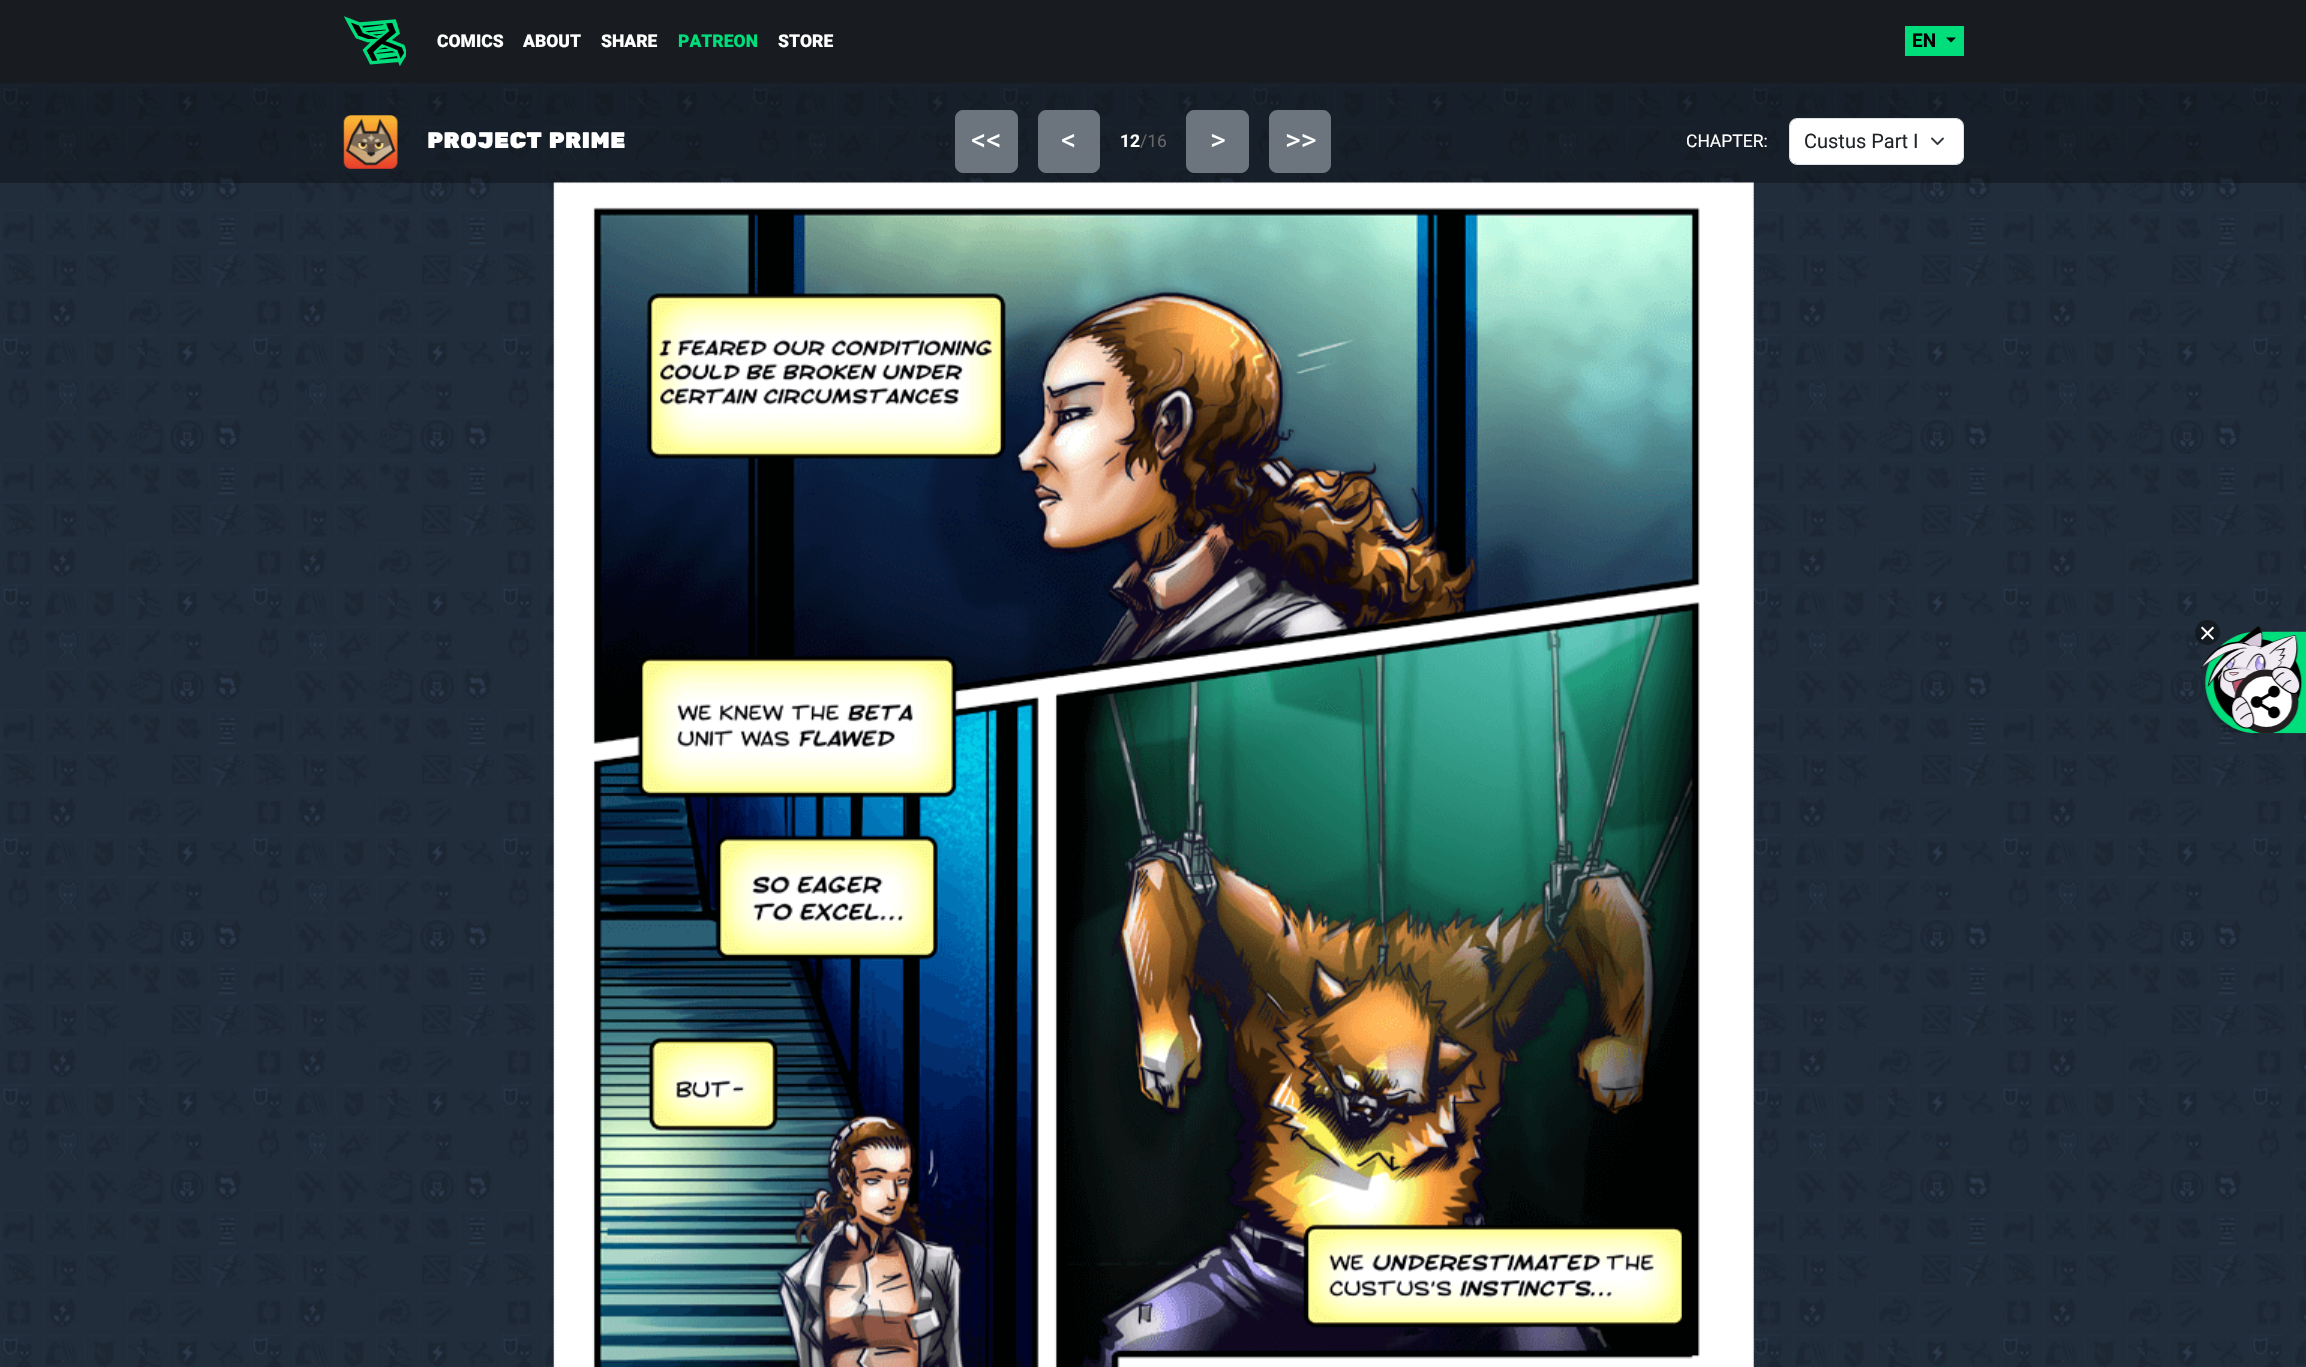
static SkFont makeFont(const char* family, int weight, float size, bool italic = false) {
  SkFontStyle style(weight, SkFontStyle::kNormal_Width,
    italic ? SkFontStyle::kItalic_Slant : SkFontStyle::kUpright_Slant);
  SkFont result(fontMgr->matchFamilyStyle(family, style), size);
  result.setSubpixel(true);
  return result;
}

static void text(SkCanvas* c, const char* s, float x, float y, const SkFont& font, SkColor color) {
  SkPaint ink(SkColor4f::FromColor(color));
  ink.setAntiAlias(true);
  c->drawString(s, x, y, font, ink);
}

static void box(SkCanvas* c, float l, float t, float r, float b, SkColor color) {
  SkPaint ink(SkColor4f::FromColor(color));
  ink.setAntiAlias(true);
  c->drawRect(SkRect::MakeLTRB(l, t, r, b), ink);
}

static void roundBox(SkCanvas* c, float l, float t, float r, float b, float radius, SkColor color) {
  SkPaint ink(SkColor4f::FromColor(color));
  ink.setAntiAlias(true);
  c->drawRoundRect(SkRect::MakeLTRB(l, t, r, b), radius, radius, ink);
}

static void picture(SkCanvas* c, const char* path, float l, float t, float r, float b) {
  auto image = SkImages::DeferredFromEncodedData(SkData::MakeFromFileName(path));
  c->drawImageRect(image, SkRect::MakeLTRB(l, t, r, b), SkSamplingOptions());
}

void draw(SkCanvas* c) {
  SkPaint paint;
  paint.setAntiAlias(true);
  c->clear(0xffffffff);
  picture(c, "img_01.png", 0, 83, 2306, 1367);
  box(c, 0, 0, 2306, 83, 0xff181c20);
  picture(c, "img_02.png", 344, 16, 406, 66);
  SkFont face1 = makeFont("Roboto", 900, 17.5f);
  text(c, "COMICS", 437, 47, face1, 0xffffffff);
  text(c, "ABOUT", 523, 47, face1, 0xffffffff);
  text(c, "SHARE", 601, 47, face1, 0xffffffff);
  text(c, "PATREON", 678, 47, face1, 0xff00dd7b);
  text(c, "STORE", 778, 47, face1, 0xffffffff);
  box(c, 1905, 26, 1964, 56, 0xff00dd7b);
  SkFont face2 = makeFont("Roboto", 700, 19);
  text(c, "EN", 1912, 47, face2, 0xff000000);
  paint.setColor(0xff000000);
  c->drawPath(SkPathBuilder().moveTo(1946, 37.5f).lineTo(1956, 37.5f).lineTo(1951, 42.5f).close().detach(), paint);
  box(c, 0, 83, 2306, 183, 0x4d000000);
  picture(c, "img_03.png", 343, 115, 398, 169);
  SkFont face3 = makeFont("Rubik One", 400, 22.5f);
  text(c, "PROJECT PRIME", 427, 148, face3, 0xffffffff);
  paint.setColor(0xff6c757d);
  c->drawRoundRect(SkRect::MakeLTRB(955.5f, 110.5f, 1017.5f, 172.5f), 7.5f, 7.5f, paint);
  paint.setStyle(SkPaint::kStroke_Style);
  paint.setStrokeWidth(1);
  c->drawRoundRect(SkRect::MakeLTRB(955.5f, 110.5f, 1017.5f, 172.5f), 7.5f, 7.5f, paint);
  SkFont face4 = makeFont("Roboto", 400, 30);
  text(c, "<<", 971, 150, face4, 0xffffffff);
  paint.setStyle(SkPaint::kFill_Style);
  c->drawRoundRect(SkRect::MakeLTRB(1038.5f, 110.5f, 1099.5f, 172.5f), 7.5f, 7.5f, paint);
  paint.setStyle(SkPaint::kStroke_Style);
  c->drawRoundRect(SkRect::MakeLTRB(1038.5f, 110.5f, 1099.5f, 172.5f), 7.5f, 7.5f, paint);
  text(c, "<", 1061, 150, face4, 0xffffffff);
  SkFont face5 = makeFont("Roboto", 700, 17.5f);
  text(c, "12", 1120, 147, face5, 0xffffffff);
  SkFont face6 = makeFont("Roboto", 400, 17.5f);
  text(c, "/16", 1140, 147, face6, 0xff666666);
  paint.setStyle(SkPaint::kFill_Style);
  c->drawRoundRect(SkRect::MakeLTRB(1186.5f, 110.5f, 1248.5f, 172.5f), 7.5f, 7.5f, paint);
  paint.setStyle(SkPaint::kStroke_Style);
  c->drawRoundRect(SkRect::MakeLTRB(1186.5f, 110.5f, 1248.5f, 172.5f), 7.5f, 7.5f, paint);
  text(c, ">", 1210, 150, face4, 0xffffffff);
  paint.setStyle(SkPaint::kFill_Style);
  c->drawRoundRect(SkRect::MakeLTRB(1269.5f, 110.5f, 1330.5f, 172.5f), 7.5f, 7.5f, paint);
  paint.setStyle(SkPaint::kStroke_Style);
  c->drawRoundRect(SkRect::MakeLTRB(1269.5f, 110.5f, 1330.5f, 172.5f), 7.5f, 7.5f, paint);
  text(c, ">>", 1285, 150, face4, 0xffffffff);
  text(c, "CHAPTER:", 1686, 147, face6, 0xffffffff);
  roundBox(c, 1790, 119, 1963, 164, 6, 0xffffffff);
  paint.setStrokeWidth(1.9f);
  paint.setStrokeCap(SkPaint::kRound_Cap);
  paint.setStrokeJoin(SkPaint::kRound_Join);
  paint.setColor(0xff343a40);
  c->drawPath(SkPathBuilder().moveTo(1932, 138.5f).lineTo(1937.5f, 144).lineTo(1943, 138.5f).detach(), paint);
  paint.setStrokeWidth(1);
  paint.setStrokeCap(SkPaint::kButt_Cap);
  paint.setStrokeJoin(SkPaint::kMiter_Join);
  paint.setColor(0xffdee2e6);
  c->drawRoundRect(SkRect::MakeLTRB(1789.5f, 118.5f, 1963.5f, 164.5f), 7.5f, 7.5f, paint);
  SkFont face7 = makeFont("Roboto", 400, 20);
  text(c, "Custus Part I", 1804, 148, face7, 0xff212529);
  picture(c, "img_04.png", 553, 182, 1754, 1367);
  picture(c, "img_06.png", 2201, 626, 2306, 734);
  paint.setStyle(SkPaint::kFill_Style);
  paint.setColor(0x66000000);
  c->drawCircle(2207.5f, 632.5f, 12.5f, paint);
  picture(c, "img_05.png", 2201, 626, 2214, 640);
}
